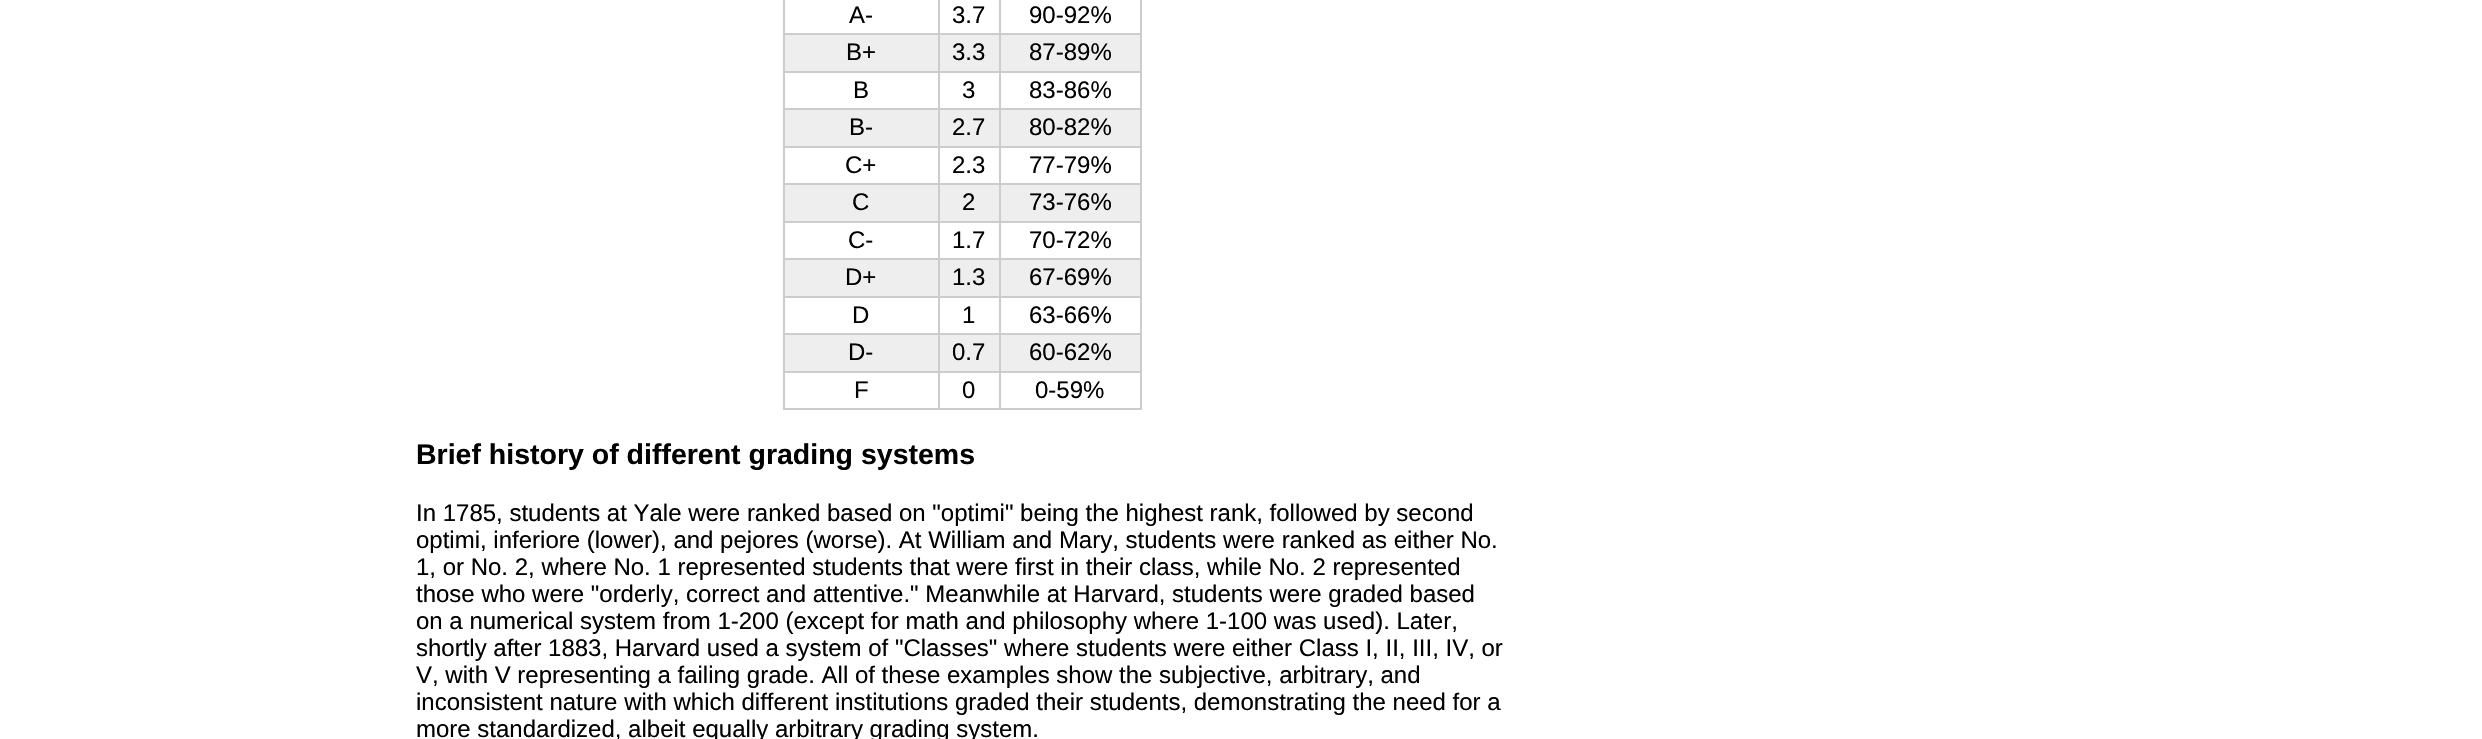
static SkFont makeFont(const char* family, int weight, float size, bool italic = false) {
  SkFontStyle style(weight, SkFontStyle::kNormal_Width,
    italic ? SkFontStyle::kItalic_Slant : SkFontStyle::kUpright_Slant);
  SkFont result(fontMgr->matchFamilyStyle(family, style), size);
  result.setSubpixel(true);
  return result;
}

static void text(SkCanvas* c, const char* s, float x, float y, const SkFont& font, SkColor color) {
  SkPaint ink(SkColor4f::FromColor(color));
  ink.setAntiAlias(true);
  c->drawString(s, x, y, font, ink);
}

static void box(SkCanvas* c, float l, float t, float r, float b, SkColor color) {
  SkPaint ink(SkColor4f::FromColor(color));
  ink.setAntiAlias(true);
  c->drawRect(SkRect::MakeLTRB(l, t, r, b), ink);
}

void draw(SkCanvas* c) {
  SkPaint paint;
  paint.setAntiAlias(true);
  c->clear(0xffffffff);
  SkFont face1 = makeFont("Liberation Sans", 400, 24);
  text(c, "A-", 849, 23, face1, 0xff000000);
  box(c, 999, 33, 1142, 35, 0xffcccccc);
  box(c, 785, 35, 1140, 71, 0xffeeeeee);
  box(c, 999, 71, 1142, 73, 0xffcccccc);
  box(c, 999, 108, 1142, 110, 0xffcccccc);
  box(c, 785, 110, 1140, 146, 0xffeeeeee);
  box(c, 999, 146, 1142, 148, 0xffcccccc);
  box(c, 999, 183, 1142, 185, 0xffcccccc);
  box(c, 785, 185, 1140, 221, 0xffeeeeee);
  box(c, 999, 221, 1142, 223, 0xffcccccc);
  box(c, 999, 258, 1142, 260, 0xffcccccc);
  box(c, 785, 260, 1140, 296, 0xffeeeeee);
  box(c, 999, 296, 1142, 298, 0xffcccccc);
  box(c, 999, 333, 1142, 335, 0xffcccccc);
  box(c, 785, 335, 1140, 371, 0xffeeeeee);
  box(c, 999, 371, 1142, 373, 0xffcccccc);
  box(c, 1140, 371, 1142, 410, 0xffcccccc);
  box(c, 999, 408, 1142, 410, 0xffcccccc);
  box(c, 999, 371, 1001, 410, 0xffcccccc);
  box(c, 938, 371, 1001, 373, 0xffcccccc);
  box(c, 999, 333, 1001, 372, 0xffcccccc);
  box(c, 938, 333, 1001, 335, 0xffcccccc);
  box(c, 999, 296, 1001, 335, 0xffcccccc);
  box(c, 938, 296, 1001, 298, 0xffcccccc);
  box(c, 999, 258, 1001, 297, 0xffcccccc);
  box(c, 938, 258, 1001, 260, 0xffcccccc);
  box(c, 999, 221, 1001, 260, 0xffcccccc);
  box(c, 938, 221, 1001, 223, 0xffcccccc);
  box(c, 999, 183, 1001, 222, 0xffcccccc);
  box(c, 938, 183, 1001, 185, 0xffcccccc);
  box(c, 999, 146, 1001, 185, 0xffcccccc);
  box(c, 938, 146, 1001, 148, 0xffcccccc);
  box(c, 999, 108, 1001, 147, 0xffcccccc);
  box(c, 938, 108, 1001, 110, 0xffcccccc);
  box(c, 999, 71, 1001, 110, 0xffcccccc);
  box(c, 938, 71, 1001, 73, 0xffcccccc);
  box(c, 999, 33, 1001, 72, 0xffcccccc);
  box(c, 938, 33, 1001, 35, 0xffcccccc);
  box(c, 938, 408, 1001, 410, 0xffcccccc);
  box(c, 938, 371, 940, 410, 0xffcccccc);
  box(c, 783, 371, 939, 373, 0xffcccccc);
  box(c, 938, 333, 940, 372, 0xffcccccc);
  box(c, 783, 333, 939, 335, 0xffcccccc);
  box(c, 938, 296, 940, 335, 0xffcccccc);
  box(c, 783, 296, 939, 298, 0xffcccccc);
  box(c, 938, 258, 940, 297, 0xffcccccc);
  box(c, 783, 258, 939, 260, 0xffcccccc);
  box(c, 938, 221, 940, 260, 0xffcccccc);
  box(c, 783, 221, 939, 223, 0xffcccccc);
  box(c, 938, 183, 940, 222, 0xffcccccc);
  box(c, 783, 183, 939, 185, 0xffcccccc);
  box(c, 938, 146, 940, 185, 0xffcccccc);
  box(c, 783, 146, 939, 148, 0xffcccccc);
  box(c, 938, 108, 940, 147, 0xffcccccc);
  box(c, 783, 108, 939, 110, 0xffcccccc);
  box(c, 938, 71, 940, 110, 0xffcccccc);
  box(c, 783, 71, 939, 73, 0xffcccccc);
  box(c, 938, 33, 940, 72, 0xffcccccc);
  box(c, 783, 33, 939, 35, 0xffcccccc);
  box(c, 938, 0, 940, 35, 0xffcccccc);
  text(c, "3.7", 952, 23, face1, 0xff000000);
  box(c, 999, 0, 1001, 35, 0xffcccccc);
  text(c, "90-92%", 1029, 23, face1, 0xff000000);
  box(c, 783, 408, 939, 410, 0xffcccccc);
  box(c, 783, 371, 785, 410, 0xffcccccc);
  box(c, 783, 333, 785, 372, 0xffcccccc);
  box(c, 783, 296, 785, 335, 0xffcccccc);
  box(c, 783, 258, 785, 297, 0xffcccccc);
  box(c, 783, 221, 785, 260, 0xffcccccc);
  box(c, 783, 183, 785, 222, 0xffcccccc);
  box(c, 783, 146, 785, 185, 0xffcccccc);
  box(c, 783, 108, 785, 147, 0xffcccccc);
  box(c, 783, 71, 785, 110, 0xffcccccc);
  box(c, 783, 0, 785, 72, 0xffcccccc);
  text(c, "B+", 846, 60, face1, 0xff000000);
  text(c, "3.3", 952, 60, face1, 0xff000000);
  box(c, 1140, 333, 1142, 372, 0xffcccccc);
  box(c, 1140, 296, 1142, 335, 0xffcccccc);
  box(c, 1140, 258, 1142, 297, 0xffcccccc);
  box(c, 1140, 221, 1142, 260, 0xffcccccc);
  box(c, 1140, 183, 1142, 222, 0xffcccccc);
  box(c, 1140, 146, 1142, 185, 0xffcccccc);
  box(c, 1140, 108, 1142, 147, 0xffcccccc);
  box(c, 1140, 71, 1142, 110, 0xffcccccc);
  box(c, 1140, 0, 1142, 72, 0xffcccccc);
  text(c, "87-89%", 1029, 60, face1, 0xff000000);
  text(c, "B", 853, 98, face1, 0xff000000);
  text(c, "3", 962, 98, face1, 0xff000000);
  text(c, "83-86%", 1029, 98, face1, 0xff000000);
  text(c, "B-", 849, 135, face1, 0xff000000);
  text(c, "2.7", 952, 135, face1, 0xff000000);
  text(c, "80-82%", 1029, 135, face1, 0xff000000);
  text(c, "C+", 845, 173, face1, 0xff000000);
  text(c, "2.3", 952, 173, face1, 0xff000000);
  text(c, "77-79%", 1029, 173, face1, 0xff000000);
  text(c, "C", 852, 210, face1, 0xff000000);
  text(c, "2", 962, 210, face1, 0xff000000);
  text(c, "73-76%", 1029, 210, face1, 0xff000000);
  text(c, "C-", 848, 248, face1, 0xff000000);
  text(c, "1.7", 952, 248, face1, 0xff000000);
  text(c, "70-72%", 1029, 248, face1, 0xff000000);
  text(c, "D+", 845, 285, face1, 0xff000000);
  text(c, "1.3", 952, 285, face1, 0xff000000);
  text(c, "67-69%", 1029, 285, face1, 0xff000000);
  text(c, "D", 852, 323, face1, 0xff000000);
  text(c, "1", 962, 323, face1, 0xff000000);
  text(c, "63-66%", 1029, 323, face1, 0xff000000);
  text(c, "D-", 848, 360, face1, 0xff000000);
  text(c, "0.7", 952, 360, face1, 0xff000000);
  text(c, "60-62%", 1029, 360, face1, 0xff000000);
  text(c, "F", 854, 398, face1, 0xff000000);
  text(c, "0", 962, 398, face1, 0xff000000);
  text(c, "0-59%", 1035, 398, face1, 0xff000000);
  SkFont face2 = makeFont("Liberation Sans", 700, 28.5f);
  text(c, "Brief history of different grading systems", 416, 464, face2, 0xff000000);
  text(c, "In 1785, students at Yale were ranked based on \"optimi\" being the highest rank, followed by second", 416, 521, face1, 0xff000000);
  text(c, "optimi, inferiore (lower), and pejores (worse). At William and Mary, students were ranked as either No.", 416, 548, face1, 0xff000000);
  text(c, "1, or No. 2, where No. 1 represented students that were first in their class, while No. 2 represented", 416, 575, face1, 0xff000000);
  text(c, "those who were \"orderly, correct and attentive.\" Meanwhile at Harvard, students were graded based", 416, 602, face1, 0xff000000);
  text(c, "on a numerical system from 1-200 (except for math and philosophy where 1-100 was used). Later,", 416, 629, face1, 0xff000000);
  text(c, "shortly after 1883, Harvard used a system of \"Classes\" where students were either Class I, II, III, IV, or", 416, 656, face1, 0xff000000);
  text(c, "V, with V representing a failing grade. All of these examples show the subjective, arbitrary, and", 416, 683, face1, 0xff000000);
  text(c, "inconsistent nature with which different institutions graded their students, demonstrating the need for a", 416, 710, face1, 0xff000000);
  text(c, "more standardized, albeit equally arbitrary grading system.", 416, 737, face1, 0xff000000);
}
